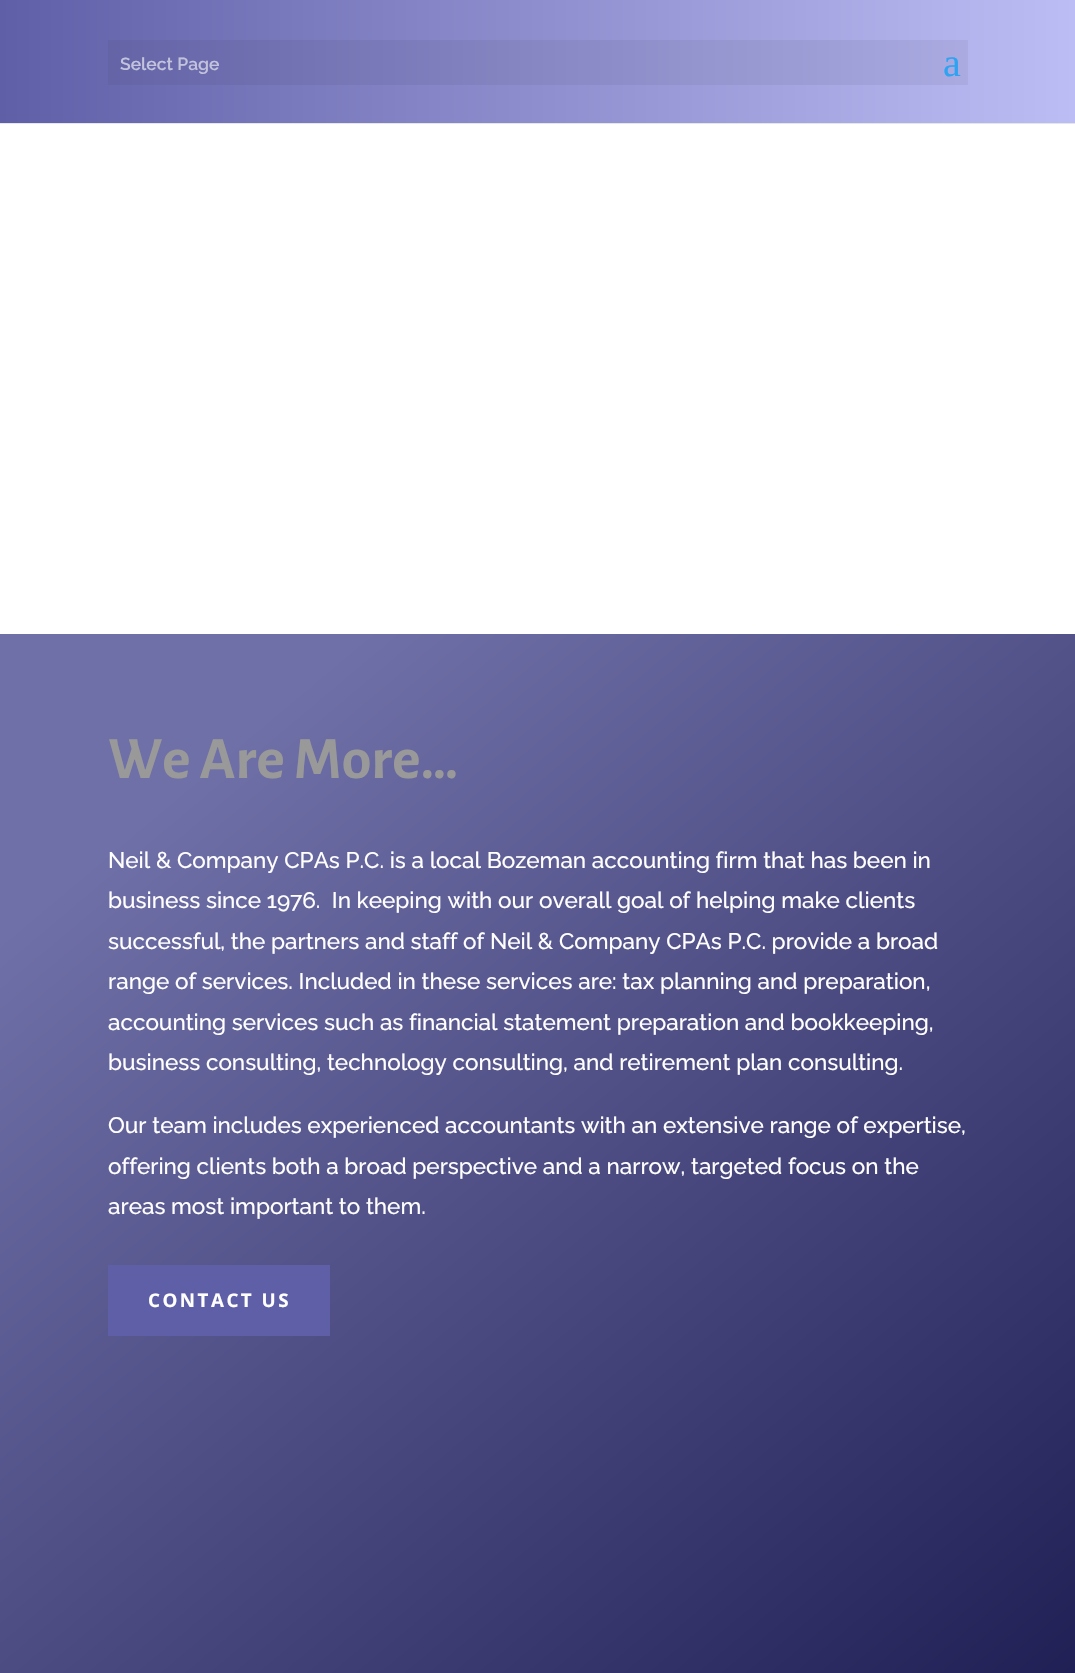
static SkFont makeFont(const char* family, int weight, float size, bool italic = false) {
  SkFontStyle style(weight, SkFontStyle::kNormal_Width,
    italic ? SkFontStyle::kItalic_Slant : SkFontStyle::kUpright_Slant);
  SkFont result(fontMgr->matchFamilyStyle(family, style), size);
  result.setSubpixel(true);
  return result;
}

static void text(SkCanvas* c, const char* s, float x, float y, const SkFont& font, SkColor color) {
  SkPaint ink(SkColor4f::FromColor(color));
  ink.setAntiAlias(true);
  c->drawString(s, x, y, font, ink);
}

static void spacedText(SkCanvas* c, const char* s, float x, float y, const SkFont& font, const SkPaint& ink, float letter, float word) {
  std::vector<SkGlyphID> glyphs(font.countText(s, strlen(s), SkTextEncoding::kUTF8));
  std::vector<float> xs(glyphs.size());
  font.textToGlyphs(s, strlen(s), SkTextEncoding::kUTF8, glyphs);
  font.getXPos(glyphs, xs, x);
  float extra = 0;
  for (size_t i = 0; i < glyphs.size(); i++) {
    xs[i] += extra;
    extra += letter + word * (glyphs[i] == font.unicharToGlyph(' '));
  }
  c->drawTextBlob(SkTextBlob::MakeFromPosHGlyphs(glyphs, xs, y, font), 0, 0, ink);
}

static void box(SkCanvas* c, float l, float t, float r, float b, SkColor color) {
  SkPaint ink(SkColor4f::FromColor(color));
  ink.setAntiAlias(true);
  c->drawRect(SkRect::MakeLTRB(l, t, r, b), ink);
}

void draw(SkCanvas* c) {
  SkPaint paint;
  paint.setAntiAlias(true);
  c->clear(0xffffffff);
  box(c, 0, 123, 1075, 124, 0xffe6e6e6);
  {
    const SkColor colors[] = {0xff5f5fa8, 0xffbdbdf5};
    const float stops[] = {0, 1};
    const SkPoint ends[] = {{0, -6.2f}, {1075, -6.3f}};
    paint.setShader(SkGradientShader::MakeLinear(ends, colors, stops, 2, SkTileMode::kClamp));
    paint.setAlpha(255);
  }
  c->drawRect(SkRect::MakeLTRB(0, 0, 1075, 123), paint);
  box(c, 108, 40, 968, 85, 0x0d000000);
  SkFont face1 = makeFont("Raleway", 600, 17.5f);
  text(c, "Select Page", 120, 70, face1, 0xffc3c3dd);
  SkFont face2 = makeFont("Liberation Serif", 400, 40);
  text(c, "a", 943, 76, face2, 0xff2ea3f2);
  {
    const SkColor colors[] = {0xff7070a8, 0xff0d0d42};
    const float stops[] = {0.12f, 0.92f};
    const SkPoint ends[] = {{-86, 706}, {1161, 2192}};
    paint.setShader(SkGradientShader::MakeLinear(ends, colors, stops, 2, SkTileMode::kClamp));
    paint.setAlpha(255);
  }
  c->drawRect(SkRect::MakeLTRB(0, 634, 1075, 1673), paint);
  SkFont face3 = makeFont("Alegreya Sans", 700, 60);
  text(c, "We Are More…", 108, 778, face3, 0xff999999);
  SkFont face4 = makeFont("Raleway", 500, 22.5f);
  text(c, "Neil & Company CPAs P.C. is a local Bozeman accounting firm that has been in", 108, 868, face4, 0xffffffff);
  text(c, "business since 1976.  In keeping with our overall goal of helping make clients", 108, 908, face4, 0xffffffff);
  text(c, "successful, the partners and staff of Neil & Company CPAs P.C. provide a broad", 108, 949, face4, 0xffffffff);
  text(c, "range of services. Included in these services are: tax planning and preparation,", 108, 989, face4, 0xffffffff);
  text(c, "accounting services such as financial statement preparation and bookkeeping,", 108, 1030, face4, 0xffffffff);
  text(c, "business consulting, technology consulting, and retirement plan consulting.", 108, 1070, face4, 0xffffffff);
  text(c, "Our team includes experienced accountants with an extensive range of expertise,", 108, 1133, face4, 0xffffffff);
  text(c, "offering clients both a broad perspective and a narrow, targeted focus on the", 108, 1174, face4, 0xffffffff);
  text(c, "areas most important to them.", 108, 1214, face4, 0xffffffff);
  box(c, 108, 1265, 330, 1336, 0xff5f5fa8);
  SkFont face5 = makeFont("Open Sans", 700, 18.75f);
  paint.setShader(nullptr);
  paint.setColor(0xffffffff);
  spacedText(c, "CONTACT US", 148, 1307, face5, paint, 2.5f, 0);
}
